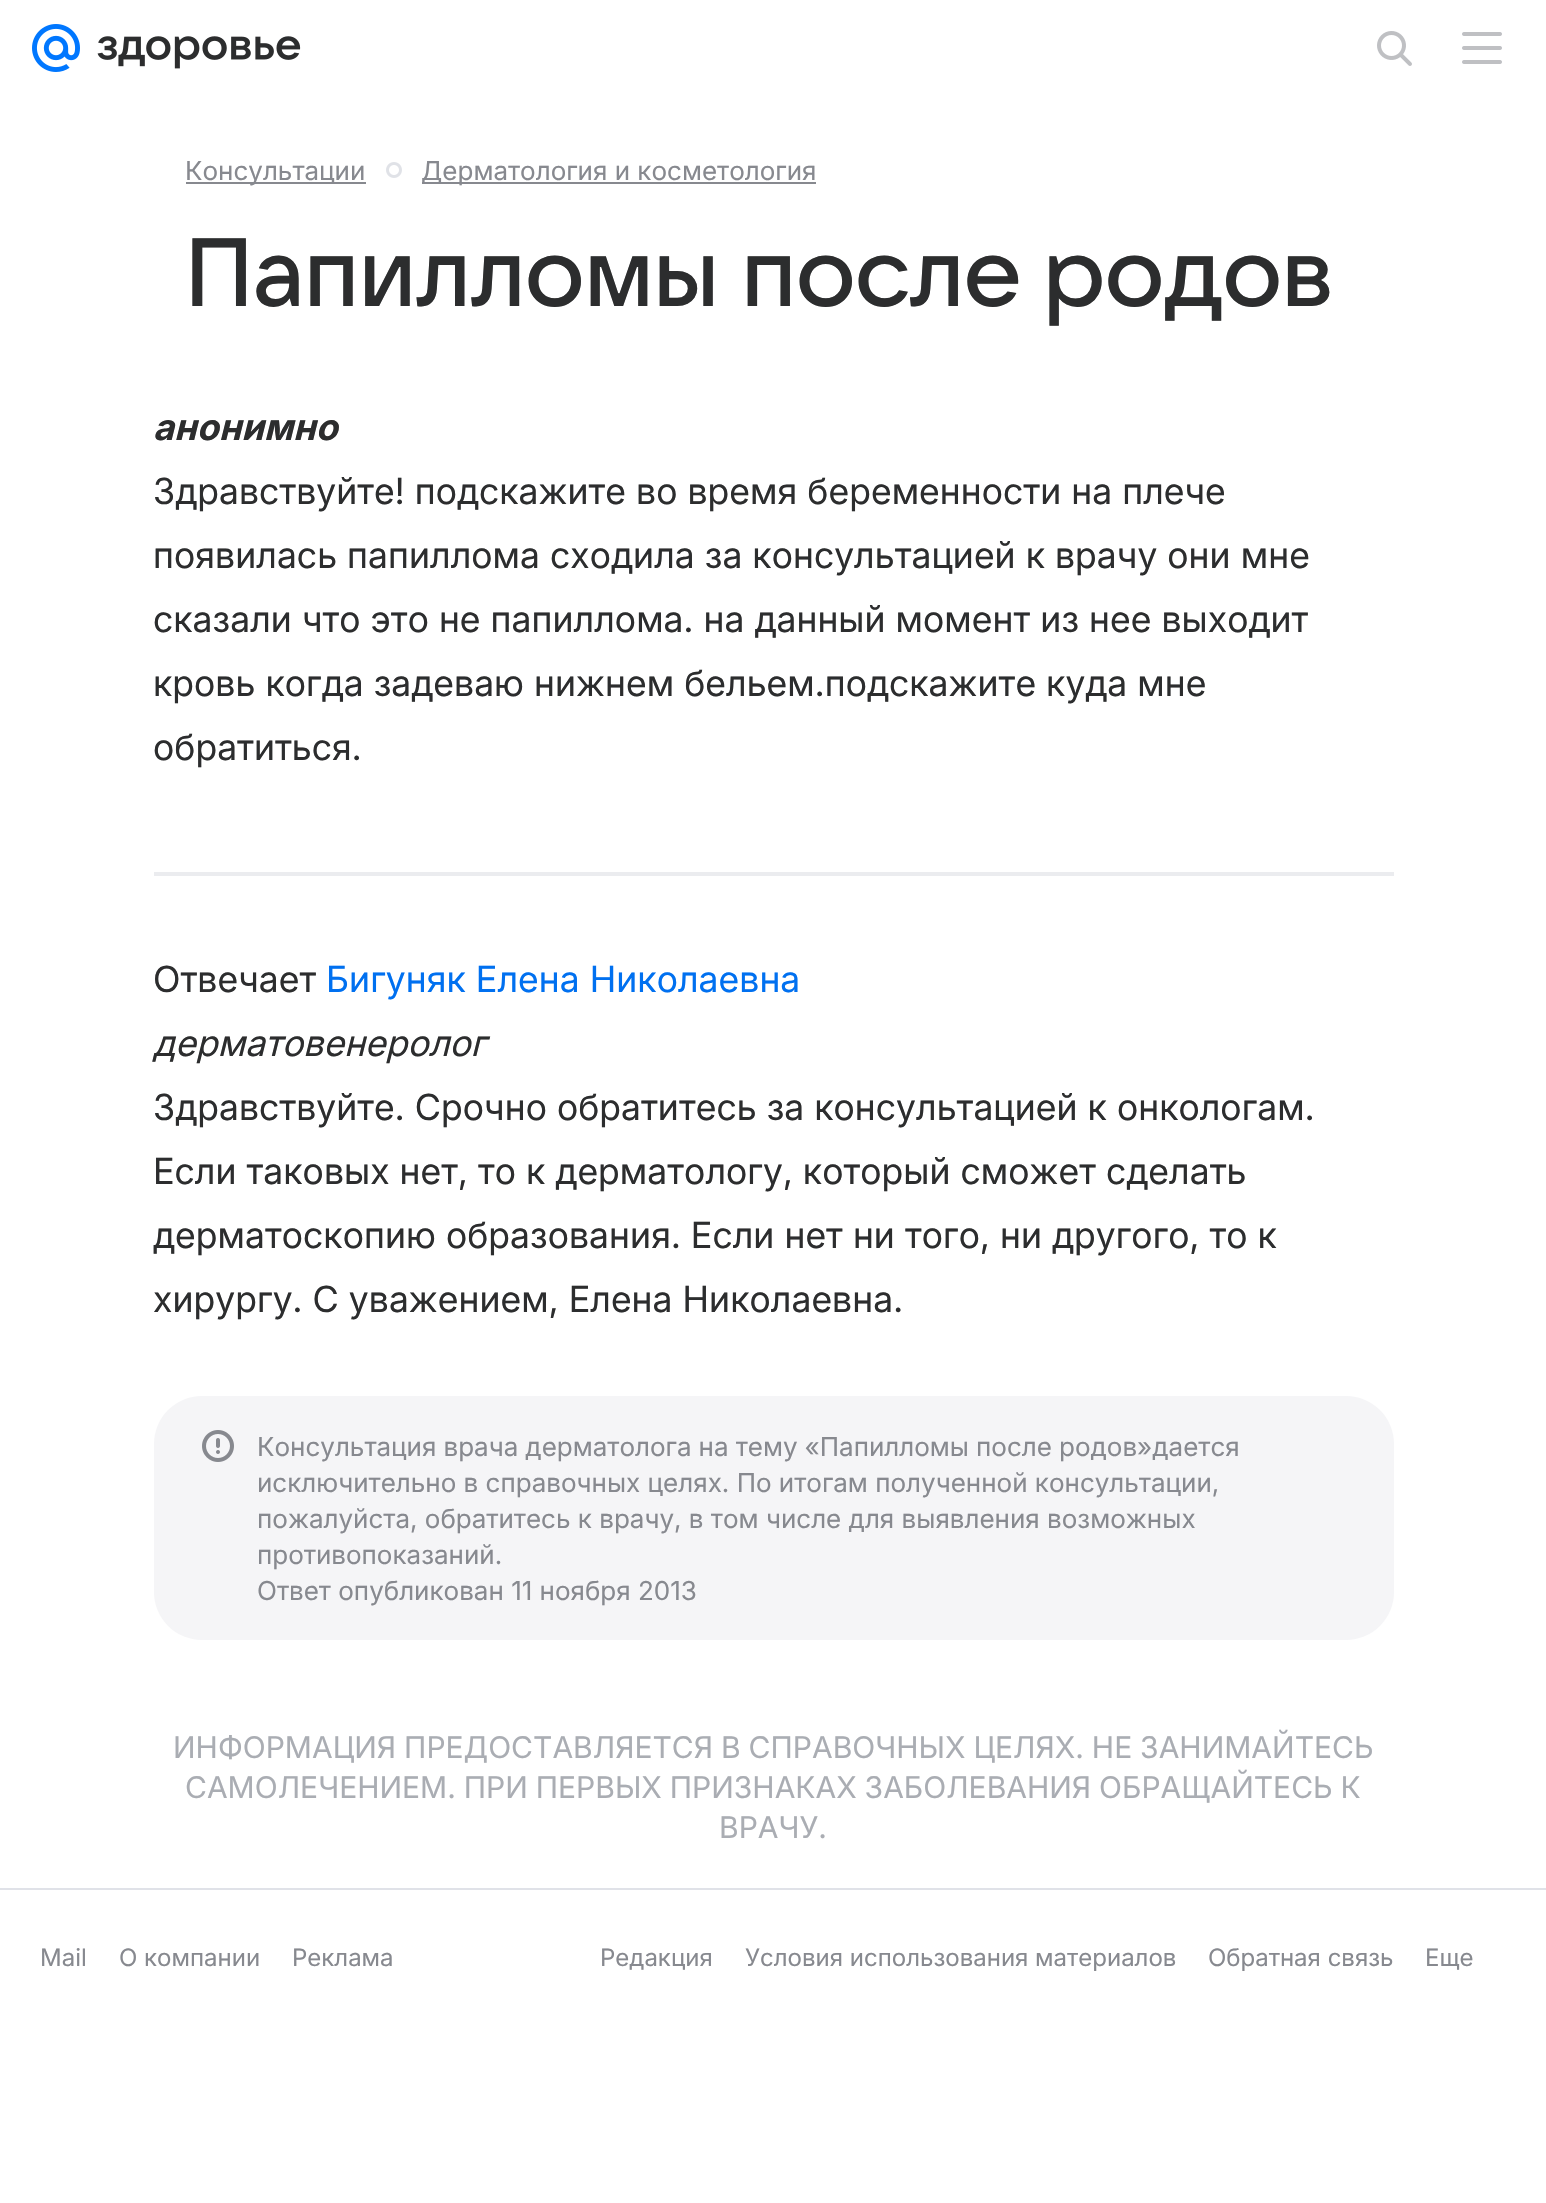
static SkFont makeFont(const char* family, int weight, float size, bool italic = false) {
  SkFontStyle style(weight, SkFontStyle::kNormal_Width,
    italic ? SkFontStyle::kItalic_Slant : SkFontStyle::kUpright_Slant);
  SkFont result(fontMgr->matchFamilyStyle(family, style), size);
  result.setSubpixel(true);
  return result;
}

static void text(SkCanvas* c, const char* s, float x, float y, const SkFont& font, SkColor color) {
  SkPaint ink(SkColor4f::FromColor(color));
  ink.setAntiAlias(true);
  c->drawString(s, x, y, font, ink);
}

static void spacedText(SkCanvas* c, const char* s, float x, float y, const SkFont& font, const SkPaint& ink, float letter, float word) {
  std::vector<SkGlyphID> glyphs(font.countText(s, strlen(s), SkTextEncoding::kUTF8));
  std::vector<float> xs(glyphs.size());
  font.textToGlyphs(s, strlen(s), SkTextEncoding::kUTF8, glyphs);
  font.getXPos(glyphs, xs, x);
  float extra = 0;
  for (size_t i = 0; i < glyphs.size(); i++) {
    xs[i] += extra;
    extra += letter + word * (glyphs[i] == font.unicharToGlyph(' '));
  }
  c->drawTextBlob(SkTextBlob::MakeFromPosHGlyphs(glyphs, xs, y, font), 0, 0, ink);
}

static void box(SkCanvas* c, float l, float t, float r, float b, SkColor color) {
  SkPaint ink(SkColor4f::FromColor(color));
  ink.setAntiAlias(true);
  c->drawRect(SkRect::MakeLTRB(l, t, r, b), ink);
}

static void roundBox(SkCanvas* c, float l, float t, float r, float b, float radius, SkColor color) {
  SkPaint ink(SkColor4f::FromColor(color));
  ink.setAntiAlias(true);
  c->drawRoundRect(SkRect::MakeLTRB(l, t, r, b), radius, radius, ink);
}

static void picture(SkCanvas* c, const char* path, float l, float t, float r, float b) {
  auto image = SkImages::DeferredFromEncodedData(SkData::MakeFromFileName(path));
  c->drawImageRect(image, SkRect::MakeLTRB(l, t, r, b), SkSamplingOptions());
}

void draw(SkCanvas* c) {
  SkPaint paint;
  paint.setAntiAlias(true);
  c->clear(0xffffffff);
  picture(c, "img_01.png", 32, 24, 80, 72);
  picture(c, "img_02.png", 97, 36, 301, 69);
  picture(c, "img_03.png", 1377, 31, 1412, 66);
  picture(c, "img_04.png", 1462, 32, 1502, 64);
  box(c, 186, 182, 366, 184, 0xff87898f);
  SkFont face1 = makeFont("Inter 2", 400, 26);
  text(c, "Консультации", 185, 180, face1, 0xff87898f);
  picture(c, "img_05.png", 386, 162, 402, 178);
  box(c, 422, 182, 816, 184, 0xff87898f);
  text(c, "Дерматология и косметология", 421, 180, face1, 0xff87898f);
  SkFont face2 = makeFont("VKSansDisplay", 500, 96);
  paint.setColor(0xff2c2d2e);
  spacedText(c, "Папилломы после родов", 185, 306, face2, paint, -0.5f, 0);
  SkFont face3 = makeFont("Inter", 700, 36, true);
  spacedText(c, "анонимно", 153, 440, face3, paint, 0.1f, 0);
  SkFont face4 = makeFont("Inter", 400, 36);
  spacedText(c, "Здравствуйте! подскажите во время беременности на плече", 153, 504, face4, paint, 0.1f, 0);
  spacedText(c, "появилась папиллома сходила за консультацией к врачу они мне", 153, 568, face4, paint, 0.1f, 0);
  spacedText(c, "сказали что это не папиллома. на данный момент из нее выходит", 153, 632, face4, paint, 0.1f, 0);
  spacedText(c, "кровь когда задеваю нижнем бельем.подскажите куда мне", 153, 696, face4, paint, 0.1f, 0);
  spacedText(c, "обратиться.", 153, 760, face4, paint, 0.1f, 0);
  box(c, 154, 872, 1394, 876, 0xffebecef);
  spacedText(c, "Отвечает", 153, 992, face4, paint, 0.1f, 0);
  paint.setColor(0xff0070f0);
  spacedText(c, "Бигуняк Елена Николаевна", 326, 992, face4, paint, 0.1f, 0);
  SkFont face5 = makeFont("Inter", 400, 36, true);
  paint.setColor(0xff2c2d2e);
  spacedText(c, "дерматовенеролог", 153, 1056, face5, paint, 0.1f, 0);
  spacedText(c, "Здравствуйте. Срочно обратитесь за консультацией к онкологам.", 153, 1120, face4, paint, 0.1f, 0);
  spacedText(c, "Если таковых нет, то к дерматологу, который сможет сделать", 153, 1184, face4, paint, 0.1f, 0);
  spacedText(c, "дерматоскопию образования. Если нет ни того, ни другого, то к", 153, 1248, face4, paint, 0.1f, 0);
  spacedText(c, "хирургу. С уважением, Елена Николаевна.", 153, 1312, face4, paint, 0.1f, 0);
  roundBox(c, 154, 1396, 1394, 1640, 48, 0xfff5f5f7);
  picture(c, "img_06.png", 202, 1430, 234, 1462);
  paint.setColor(0xff87898f);
  spacedText(c, "Консультация врача дерматолога на тему «Папилломы после родов»дается", 257, 1456, face1, paint, 0, -0.25f);
  text(c, "исключительно в справочных целях. По итогам полученной консультации,", 257, 1492, face1, 0xff87898f);
  text(c, "пожалуйста, обратитесь к врачу, в том числе для выявления возможных", 257, 1528, face1, 0xff87898f);
  text(c, "противопоказаний.", 257, 1564, face1, 0xff87898f);
  text(c, "Ответ опубликован 11 ноября 2013", 257, 1600, face1, 0xff87898f);
  SkFont face6 = makeFont("Inter 2", 400, 30);
  paint.setColor(0xffaaadb3);
  spacedText(c, "ИНФОРМАЦИЯ ПРЕДОСТАВЛЯЕТСЯ В СПРАВОЧНЫХ ЦЕЛЯХ. НЕ ЗАНИМАЙТЕСЬ", 173, 1758, face6, paint, 0, -0.5f);
  spacedText(c, "САМОЛЕЧЕНИЕМ. ПРИ ПЕРВЫХ ПРИЗНАКАХ ЗАБОЛЕВАНИЯ ОБРАЩАЙТЕСЬ К", 185, 1798, face6, paint, 0, -0.5f);
  text(c, "ВРАЧУ.", 719, 1838, face6, 0xffaaadb3);
  box(c, 0, 1888, 1546, 1890, 0xffe0e2e8);
  SkFont face7 = makeFont("Inter 2", 400, 24);
  text(c, "Mail", 40, 1966, face7, 0xff87898f);
  text(c, "О компании", 119, 1966, face7, 0xff87898f);
  text(c, "Реклама", 292, 1966, face7, 0xff87898f);
  text(c, "Редакция", 600, 1966, face7, 0xff87898f);
  text(c, "Условия использования материалов", 745, 1966, face7, 0xff87898f);
  text(c, "Обратная связь", 1208, 1966, face7, 0xff87898f);
  text(c, "Еще", 1425, 1966, face7, 0xff87898f);
}
